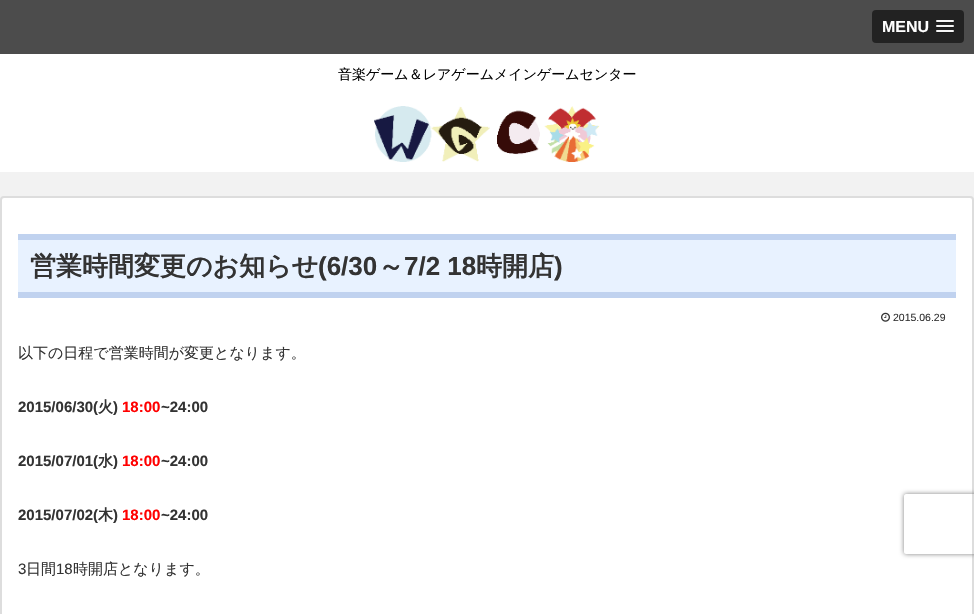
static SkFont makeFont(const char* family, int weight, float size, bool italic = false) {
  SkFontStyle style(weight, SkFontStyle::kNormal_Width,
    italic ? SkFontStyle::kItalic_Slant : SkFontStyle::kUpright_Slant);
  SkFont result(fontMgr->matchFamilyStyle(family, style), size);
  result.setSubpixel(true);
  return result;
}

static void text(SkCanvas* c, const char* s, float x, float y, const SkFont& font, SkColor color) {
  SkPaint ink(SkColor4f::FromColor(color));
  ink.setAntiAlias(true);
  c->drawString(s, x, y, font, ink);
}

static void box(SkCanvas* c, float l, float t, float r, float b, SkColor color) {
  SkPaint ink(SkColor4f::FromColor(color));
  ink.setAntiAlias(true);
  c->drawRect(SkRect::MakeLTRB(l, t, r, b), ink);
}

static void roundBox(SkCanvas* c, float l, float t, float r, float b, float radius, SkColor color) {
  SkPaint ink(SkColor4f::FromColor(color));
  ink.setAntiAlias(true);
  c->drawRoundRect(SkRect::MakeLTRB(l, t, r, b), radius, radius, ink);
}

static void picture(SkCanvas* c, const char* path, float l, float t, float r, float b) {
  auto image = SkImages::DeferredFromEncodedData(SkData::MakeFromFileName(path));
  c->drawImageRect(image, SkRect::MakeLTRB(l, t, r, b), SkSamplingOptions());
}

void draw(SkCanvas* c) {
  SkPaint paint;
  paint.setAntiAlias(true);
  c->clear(0xfff2f2f2);
  box(c, 0, 0, 974, 54, 0xff4c4c4c);
  roundBox(c, 872, 10, 964, 43, 4, 0xff222222);
  SkFont face1 = makeFont("Liberation Sans", 700, 16);
  text(c, "MENU", 882, 32, face1, 0xffffffff);
  paint.setColor(0xff1a1a1a);
  c->drawPath(SkPathBuilder().moveTo(936, 21.5f).cubicTo(935, 23.5f, 939.5f, 23, 939.5f, 23).lineTo(950.5f, 23).cubicTo(950.5f, 23, 955, 23.5f, 954, 21.5f).cubicTo(953, 22.5f, 946.5f, 22, 945, 22).cubicTo(943.5f, 22, 937, 22.5f, 936, 21.5f).close().detach(), paint);
  roundBox(c, 936, 20, 954, 22, 1, 0xfff5f5f5);
  c->drawPath(SkPathBuilder().moveTo(936, 26.5f).cubicTo(935, 28.5f, 939.5f, 28, 939.5f, 28).lineTo(950.5f, 28).cubicTo(950.5f, 28, 955, 28.5f, 954, 26.5f).cubicTo(953, 27.5f, 946.5f, 27, 945, 27).cubicTo(943.5f, 27, 937, 27.5f, 936, 26.5f).close().detach(), paint);
  roundBox(c, 936, 25, 954, 27, 1, 0xfff5f5f5);
  c->drawPath(SkPathBuilder().moveTo(936, 31.5f).cubicTo(935, 33.5f, 939.5f, 33, 939.5f, 33).lineTo(950.5f, 33).cubicTo(950.5f, 33, 955, 33.5f, 954, 31.5f).cubicTo(953, 32.5f, 946.5f, 32, 945, 32).cubicTo(943.5f, 32, 937, 32.5f, 936, 31.5f).close().detach(), paint);
  roundBox(c, 936, 30, 954, 32, 1, 0xfff5f5f5);
  box(c, 0, 54, 974, 172, 0xffffffff);
  SkFont face2 = makeFont("WenQuanYi Zen Hei", 500, 14);
  text(c, "音楽ゲーム＆レアゲームメインゲームセンター", 338, 79, face2, 0xff020202);
  picture(c, "img_01.png", 374, 106, 600, 162);
  paint.setColor(0xffffffff);
  c->drawRoundRect(SkRect::MakeLTRB(1, 197, 973, 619), 3, 3, paint);
  paint.setStyle(SkPaint::kStroke_Style);
  paint.setStrokeWidth(2);
  paint.setColor(0xffdddddd);
  c->drawRoundRect(SkRect::MakeLTRB(1, 197, 973, 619), 3, 3, paint);
  box(c, 18, 240, 956, 292, 0xffe8f2ff);
  box(c, 18, 234, 956, 240, 0xffc0d2ef);
  box(c, 18, 292, 956, 298, 0xffc0d2ef);
  SkFont face3 = makeFont("WenQuanYi Zen Hei", 700, 26);
  text(c, "営業時間変更のお知らせ", 30, 275, face3, 0xff333333);
  SkFont face4 = makeFont("Liberation Sans", 700, 26);
  text(c, "(6/30", 318, 275, face4, 0xff333333);
  text(c, "～", 378, 275, face3, 0xff333333);
  text(c, "7/2 18", 404, 275, face4, 0xff333333);
  text(c, "時開店", 476, 275, face3, 0xff333333);
  text(c, ")", 554, 275, face4, 0xff333333);
  picture(c, "img_02.png", 881, 312, 890, 322);
  SkFont face5 = makeFont("Liberation Sans", 400, 10.5f);
  text(c, "2015.06.29", 893, 321, face5, 0xff333333);
  SkFont face6 = makeFont("WenQuanYi Zen Hei", 500, 15);
  text(c, "以下の日程で営業時間が変更となります。", 18, 358, face6, 0xff333333);
  SkFont face7 = makeFont("Liberation Sans", 700, 15);
  text(c, "2015/06/30(", 18, 412, face7, 0xff333333);
  SkFont face8 = makeFont("WenQuanYi Zen Hei", 700, 15);
  text(c, "火", 98, 412, face8, 0xff333333);
  text(c, ")", 113, 412, face7, 0xff333333);
  text(c, "18:00", 122, 412, face7, 0xffff0000);
  text(c, "~24:00", 161, 412, face7, 0xff333333);
  text(c, "2015/07/01(", 18, 466, face7, 0xff333333);
  text(c, "水", 98, 466, face8, 0xff333333);
  text(c, ")", 113, 466, face7, 0xff333333);
  text(c, "18:00", 122, 466, face7, 0xffff0000);
  text(c, "~24:00", 161, 466, face7, 0xff333333);
  text(c, "2015/07/02(", 18, 520, face7, 0xff333333);
  text(c, "木", 98, 520, face8, 0xff333333);
  text(c, ")", 113, 520, face7, 0xff333333);
  text(c, "18:00", 122, 520, face7, 0xffff0000);
  text(c, "~24:00", 161, 520, face7, 0xff333333);
  SkFont face9 = makeFont("Liberation Sans", 400, 15);
  text(c, "3", 18, 574, face9, 0xff333333);
  text(c, "日間", 26, 574, face6, 0xff333333);
  text(c, "18", 56, 574, face9, 0xff333333);
  text(c, "時開店となります。", 73, 574, face6, 0xff333333);
  c->save();
  c->clipPath(SkPathBuilder(SkPathFillType::kEvenOdd).moveTo(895, 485).lineTo(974, 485).lineTo(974, 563).lineTo(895, 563).close().moveTo(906, 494).lineTo(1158, 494).cubicTo(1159, 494, 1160, 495, 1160, 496).lineTo(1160, 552).cubicTo(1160, 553, 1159, 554, 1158, 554).lineTo(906, 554).cubicTo(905, 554, 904, 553, 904, 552).lineTo(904, 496).cubicTo(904, 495, 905, 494, 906, 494).close().detach(), true);
  paint.setStyle(SkPaint::kFill_Style);
  paint.setColor(0xff808080);
  paint.setMaskFilter(SkMaskFilter::MakeBlur(kNormal_SkBlurStyle, 2.5f));
  c->drawRoundRect(SkRect::MakeLTRB(904, 494, 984, 554), 2, 2, paint);
  paint.setMaskFilter(nullptr);
  c->restore();
}
